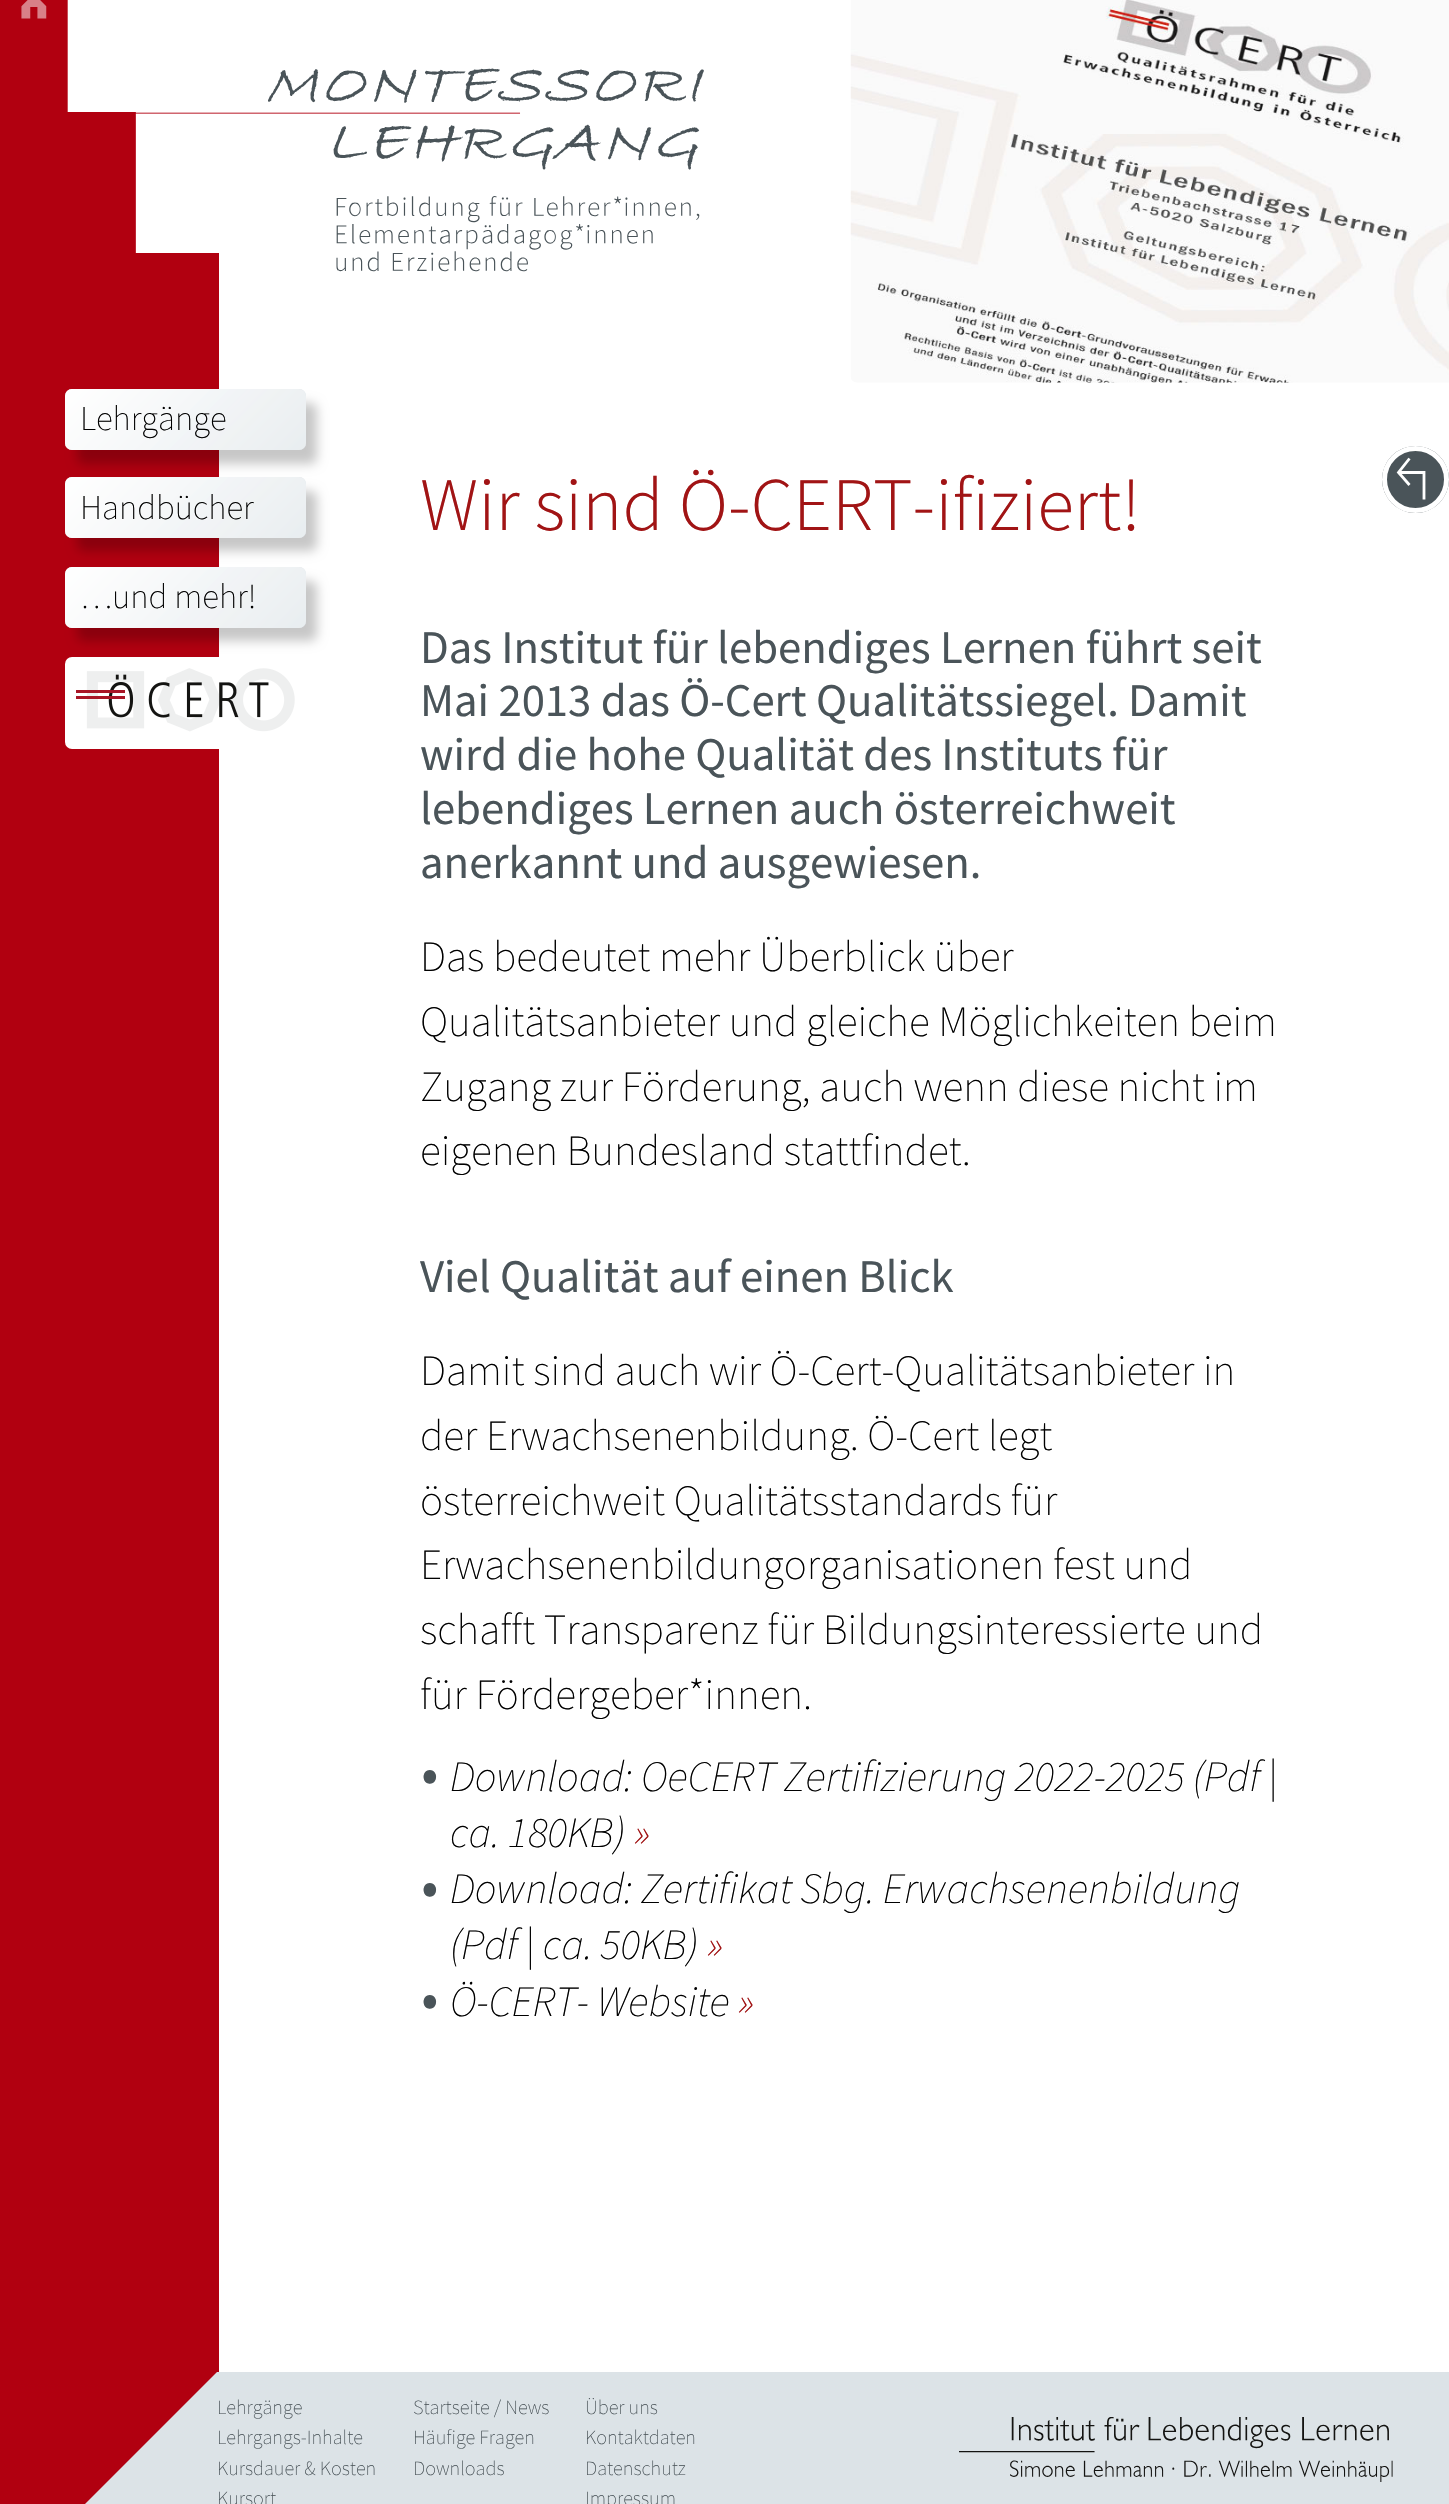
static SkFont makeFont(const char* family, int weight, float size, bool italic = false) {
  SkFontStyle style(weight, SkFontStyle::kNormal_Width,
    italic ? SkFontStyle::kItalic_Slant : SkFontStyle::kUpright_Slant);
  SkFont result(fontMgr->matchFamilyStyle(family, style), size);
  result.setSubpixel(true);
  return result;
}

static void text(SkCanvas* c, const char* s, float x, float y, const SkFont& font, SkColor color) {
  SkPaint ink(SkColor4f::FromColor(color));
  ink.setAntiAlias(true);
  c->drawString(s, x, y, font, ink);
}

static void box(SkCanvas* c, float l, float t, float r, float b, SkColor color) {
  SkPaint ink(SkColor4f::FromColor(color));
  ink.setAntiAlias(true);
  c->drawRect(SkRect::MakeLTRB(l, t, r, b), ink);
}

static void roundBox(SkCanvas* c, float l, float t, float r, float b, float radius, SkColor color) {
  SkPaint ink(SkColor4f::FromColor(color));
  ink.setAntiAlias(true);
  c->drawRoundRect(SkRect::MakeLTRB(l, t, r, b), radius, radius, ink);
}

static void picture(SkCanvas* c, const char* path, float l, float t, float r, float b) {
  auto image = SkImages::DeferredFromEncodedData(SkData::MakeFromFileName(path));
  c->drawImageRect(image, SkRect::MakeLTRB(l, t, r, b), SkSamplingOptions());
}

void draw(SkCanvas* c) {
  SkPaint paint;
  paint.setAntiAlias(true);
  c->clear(0xffffffff);
  box(c, 0, 0, 219, 2372, 0xffb10010);
  picture(c, "img_01.png", 21, 0, 704, 272);
  picture(c, "img_02.png", 850, 0, 1449, 383);
  paint.setColor(0xff4a5459);
  c->drawCircle(1415.5f, 479.5f, 33.5f, paint);
  paint.setStyle(SkPaint::kStroke_Style);
  paint.setStrokeWidth(2.8f);
  paint.setColor(0xffffffff);
  c->drawPath(SkPathBuilder().moveTo(1409.5f, 458.5f).lineTo(1398.5f, 472.5f).lineTo(1409.5f, 485).moveTo(1424, 499.5f).lineTo(1424, 472.5f).lineTo(1398.5f, 472.5f).detach(), paint);
  paint.setStrokeWidth(5);
  c->drawCircle(1415.5f, 479.5f, 31, paint);
  paint.setStyle(SkPaint::kFill_Style);
  paint.setColor(0x38000000);
  paint.setMaskFilter(SkMaskFilter::MakeBlur(kNormal_SkBlurStyle, 5.5f));
  c->drawRoundRect(SkRect::MakeLTRB(77, 403, 317, 464), 7, 7, paint);
  paint.setMaskFilter(nullptr);
  roundBox(c, 65, 389, 306, 450, 7, 0xffdce3e7);
  {
    const SkColor colors[] = {0xe6dce3e7, 0xffffffff};
    const float stops[] = {0, 1};
    const SkPoint ends[] = {{307, 631}, {65, 389}};
    paint.setShader(SkGradientShader::MakeLinear(ends, colors, stops, 2, SkTileMode::kClamp));
    paint.setAlpha(255);
  }
  c->drawRoundRect(SkRect::MakeLTRB(65, 389, 306, 450), 7, 7, paint);
  SkFont face1 = makeFont("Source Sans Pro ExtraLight", 200, 34.75f);
  text(c, "Lehrgänge", 80, 430, face1, 0xff000000);
  paint.setShader(nullptr);
  paint.setColor(0x38000000);
  paint.setMaskFilter(SkMaskFilter::MakeBlur(kNormal_SkBlurStyle, 5.5f));
  c->drawRoundRect(SkRect::MakeLTRB(77, 491, 317, 551), 7, 7, paint);
  paint.setMaskFilter(nullptr);
  roundBox(c, 65, 477, 306, 538, 7, 0xffdce3e7);
  {
    const SkColor colors[] = {0xe6dce3e7, 0xffffffff};
    const float stops[] = {0, 1};
    const SkPoint ends[] = {{307, 718}, {65, 477}};
    paint.setShader(SkGradientShader::MakeLinear(ends, colors, stops, 2, SkTileMode::kClamp));
    paint.setAlpha(255);
  }
  c->drawRoundRect(SkRect::MakeLTRB(65, 477, 306, 538), 7, 7, paint);
  text(c, "Handbücher", 80, 519, face1, 0xff000000);
  paint.setShader(nullptr);
  paint.setColor(0x38000000);
  paint.setMaskFilter(SkMaskFilter::MakeBlur(kNormal_SkBlurStyle, 5.5f));
  c->drawRoundRect(SkRect::MakeLTRB(77, 581, 317, 641), 7, 7, paint);
  paint.setMaskFilter(nullptr);
  roundBox(c, 65, 567, 306, 628, 7, 0xffdce3e7);
  {
    const SkColor colors[] = {0xe6dce3e7, 0xffffffff};
    const float stops[] = {0, 1};
    const SkPoint ends[] = {{307, 808}, {65, 567}};
    paint.setShader(SkGradientShader::MakeLinear(ends, colors, stops, 2, SkTileMode::kClamp));
    paint.setAlpha(255);
  }
  c->drawRoundRect(SkRect::MakeLTRB(65, 567, 306, 628), 7, 7, paint);
  text(c, "…und mehr!", 80, 608, face1, 0xff000000);
  roundBox(c, 65, 657, 306, 749, 7, 0xffffffff);
  picture(c, "img_03.png", 76, 668, 295, 732);
  SkFont face2 = makeFont("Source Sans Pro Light", 300, 75.5f);
  text(c, "Wir sind Ö-CERT-ifiziert!", 420, 530, face2, 0xffa11415);
  SkFont face3 = makeFont("Source Sans Pro", 400, 46.75f);
  text(c, "Das Institut für lebendiges Lernen führt seit", 420, 663, face3, 0xff4a5459);
  text(c, "Mai 2013 das Ö-Cert Qualitätssiegel. Damit", 420, 716, face3, 0xff4a5459);
  text(c, "wird die hohe Qualität des Instituts für", 420, 770, face3, 0xff4a5459);
  text(c, "lebendiges Lernen auch österreichweit", 420, 824, face3, 0xff4a5459);
  text(c, "anerkannt und ausgewiesen.", 420, 878, face3, 0xff4a5459);
  SkFont face4 = makeFont("Source Sans Pro ExtraLight", 200, 43.25f);
  text(c, "Das bedeutet mehr Überblick über", 420, 971, face4, 0xff000000);
  text(c, "Qualitätsanbieter und gleiche Möglichkeiten beim", 420, 1036, face4, 0xff000000);
  text(c, "Zugang zur Förderung, auch wenn diese nicht im", 420, 1101, face4, 0xff000000);
  text(c, "eigenen Bundesland stattfindet.", 420, 1165, face4, 0xff000000);
  text(c, "Viel Qualität auf einen Blick", 420, 1292, face3, 0xff4a5459);
  text(c, "Damit sind auch wir Ö-Cert-Qualitätsanbieter in", 420, 1385, face4, 0xff000000);
  text(c, "der Erwachsenenbildung. Ö-Cert legt", 420, 1450, face4, 0xff000000);
  text(c, "österreichweit Qualitätsstandards für", 420, 1515, face4, 0xff000000);
  text(c, "Erwachsenenbildungorganisationen fest und", 420, 1579, face4, 0xff000000);
  text(c, "schafft Transparenz für Bildungsinteressierte und", 420, 1644, face4, 0xff000000);
  text(c, "für Fördergeber*innen.", 420, 1709, face4, 0xff000000);
  SkFont face5 = makeFont("Source Sans Pro ExtraLight", 200, 65);
  text(c, "•", 421, 1794, face5, 0xff4a5459);
  SkFont face6 = makeFont("Source Sans Pro ExtraLight", 200, 43.25f, true);
  text(c, "Download: OeCERT Zertifizierung 2022-2025 (Pdf |", 450, 1791, face6, 0xff000000);
  text(c, "ca. 180KB)", 450, 1847, face6, 0xff000000);
  text(c, "»", 634, 1847, face6, 0xffa11415);
  text(c, "•", 421, 1907, face5, 0xff4a5459);
  text(c, "Download: Zertifikat Sbg. Erwachsenenbildung", 450, 1903, face6, 0xff000000);
  text(c, "(Pdf | ca. 50KB)", 450, 1959, face6, 0xff000000);
  text(c, "»", 707, 1959, face6, 0xffa11415);
  text(c, "•", 421, 2019, face5, 0xff4a5459);
  text(c, "Ö-CERT- Website", 450, 2016, face6, 0xff000000);
  text(c, "»", 738, 2016, face6, 0xffa11415);
  box(c, 85, 2372, 1449, 2504, 0xffdce3e7);
  paint.setShader(nullptr);
  paint.setColor(0xffb10010);
  c->drawPath(SkPathBuilder().moveTo(0, 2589).lineTo(217, 2372).lineTo(0, 2372).close().detach(), paint);
  SkFont face7 = makeFont("Source Sans Pro ExtraLight", 200, 20.25f);
  text(c, "Lehrgänge", 217, 2414, face7, 0xff4a5459);
  text(c, "Lehrgangs-Inhalte", 217, 2444, face7, 0xff4a5459);
  text(c, "Kursdauer & Kosten", 217, 2475, face7, 0xff4a5459);
  text(c, "Kursort", 217, 2505, face7, 0xff4a5459);
  text(c, "Startseite / News", 413, 2414, face7, 0xff4a5459);
  text(c, "Häufige Fragen", 413, 2444, face7, 0xff4a5459);
  text(c, "Downloads", 413, 2475, face7, 0xff4a5459);
  text(c, "Über uns", 585, 2414, face7, 0xff4a5459);
  text(c, "Kontaktdaten", 585, 2444, face7, 0xff4a5459);
  text(c, "Datenschutz", 585, 2475, face7, 0xff4a5459);
  text(c, "Impressum", 585, 2505, face7, 0xff4a5459);
  picture(c, "img_04.png", 959, 2417, 1393, 2482);
}
